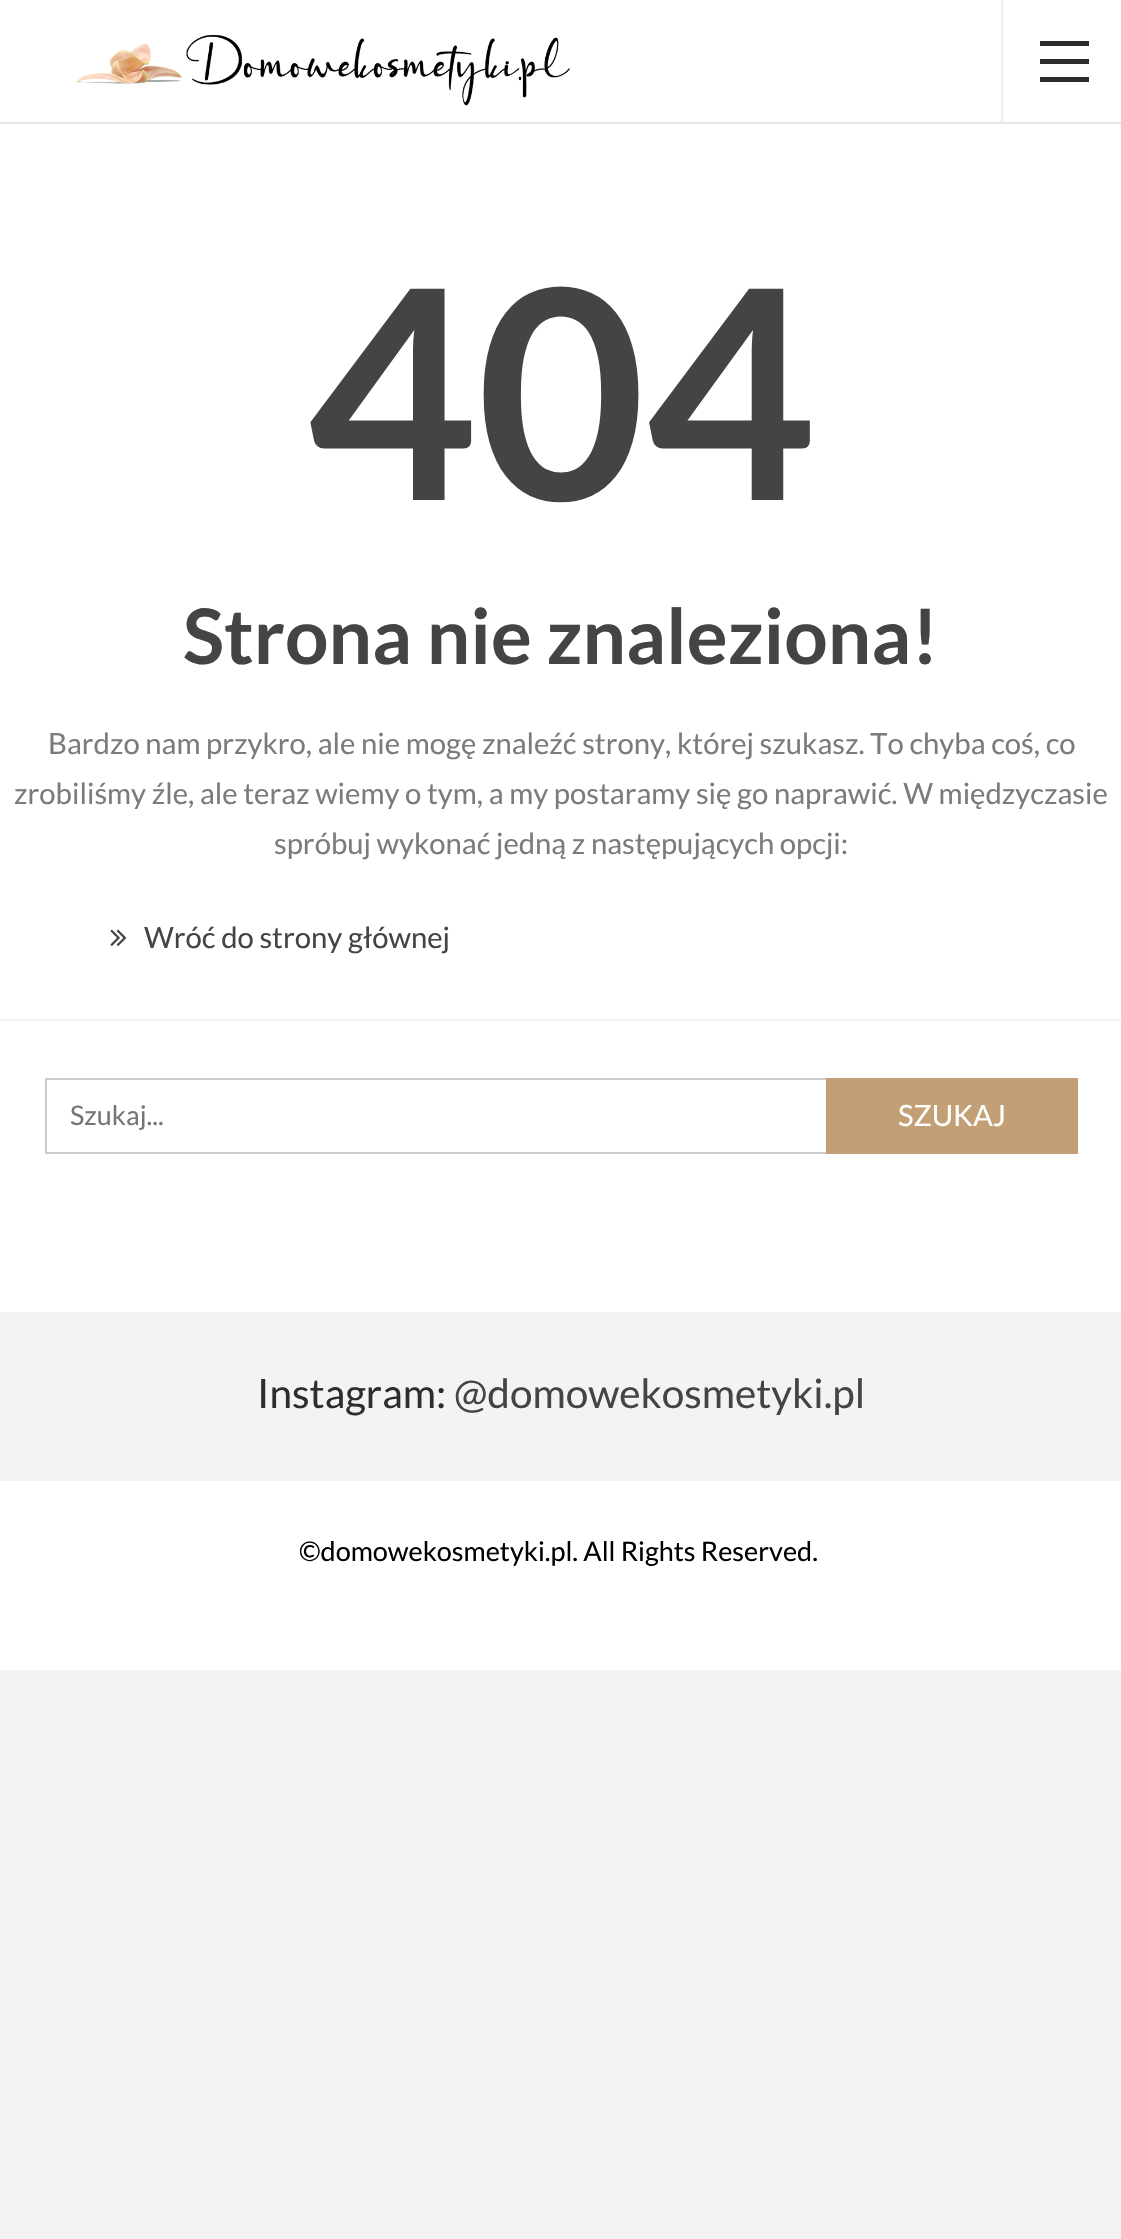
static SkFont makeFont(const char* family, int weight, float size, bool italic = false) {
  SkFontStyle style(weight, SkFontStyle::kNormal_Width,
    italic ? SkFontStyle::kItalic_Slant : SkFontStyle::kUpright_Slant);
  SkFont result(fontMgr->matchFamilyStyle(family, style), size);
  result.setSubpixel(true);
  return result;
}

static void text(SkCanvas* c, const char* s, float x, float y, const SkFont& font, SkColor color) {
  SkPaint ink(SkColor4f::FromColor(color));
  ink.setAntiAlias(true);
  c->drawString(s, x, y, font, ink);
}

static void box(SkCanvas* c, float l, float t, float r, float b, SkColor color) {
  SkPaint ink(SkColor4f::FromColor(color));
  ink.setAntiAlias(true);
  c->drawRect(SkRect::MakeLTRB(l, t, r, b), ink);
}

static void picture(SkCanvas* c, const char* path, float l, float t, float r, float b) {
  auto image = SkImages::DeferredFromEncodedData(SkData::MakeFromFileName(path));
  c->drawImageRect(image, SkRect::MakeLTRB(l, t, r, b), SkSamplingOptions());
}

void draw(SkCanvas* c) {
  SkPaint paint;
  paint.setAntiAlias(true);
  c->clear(0xfff3f3f3);
  box(c, 0, 0, 1121, 122, 0xffffffff);
  box(c, 0, 122, 1121, 124, 0xffe5e5e5);
  picture(c, "img_01.png", 76, 35, 570, 106);
  box(c, 1001, 0, 1003, 122, 0xffededed);
  box(c, 1040, 59, 1089, 64, 0xff2c2c2c);
  box(c, 1040, 41, 1089, 46, 0xff2c2c2c);
  box(c, 1040, 77, 1089, 82, 0xff2c2c2c);
  box(c, 0, 124, 1121, 1312, 0xffffffff);
  SkFont face1 = makeFont("Lato", 700, 292);
  text(c, "404", 307, 500, face1, 0xff444444);
  SkFont face2 = makeFont("Lato", 700, 76.5f);
  text(c, "Strona nie znaleziona!", 183, 664, face2, 0xff444444);
  SkFont face3 = makeFont("Lato", 400, 29.25f);
  text(c, "Bardzo nam przykro, ale nie mogę znaleźć strony, której szukasz. To chyba coś, co", 48, 754, face3, 0xff7b7b7b);
  text(c, "zrobiliśmy źle, ale teraz wiemy o tym, a my postaramy się go naprawić. W międzyczasie", 14, 804, face3, 0xff7b7b7b);
  text(c, "spróbuj wykonać jedną z następujących opcji:", 274, 854, face3, 0xff7b7b7b);
  picture(c, "img_02.png", 110, 929, 127, 946);
  text(c, "Wróć do strony głównej", 144, 948, face3, 0xff444444);
  box(c, 0, 1019, 1121, 1021, 0xfff4f4f4);
  paint.setStyle(SkPaint::kStroke_Style);
  paint.setStrokeWidth(2);
  paint.setColor(0xffcbcbcb);
  c->drawRect(SkRect::MakeLTRB(46, 1079, 1077, 1153), paint);
  SkFont face4 = makeFont("Lato", 400, 27);
  text(c, "Szukaj...", 70, 1125, face4, 0xff757575);
  box(c, 826, 1078, 1078, 1154, 0xffc39f76);
  text(c, "SZUKAJ", 898, 1126, face3, 0xffffffff);
  SkFont face5 = makeFont("Lato", 400, 40.5f);
  text(c, "Instagram:", 257, 1408, face5, 0xff2d2d2d);
  text(c, "@domowekosmetyki.pl", 454, 1408, face5, 0xff444444);
  box(c, 0, 1481, 1121, 1670, 0xffffffff);
  text(c, "©domowekosmetyki.pl. All Rights Reserved.", 299, 1561, face4, 0xff000000);
}
